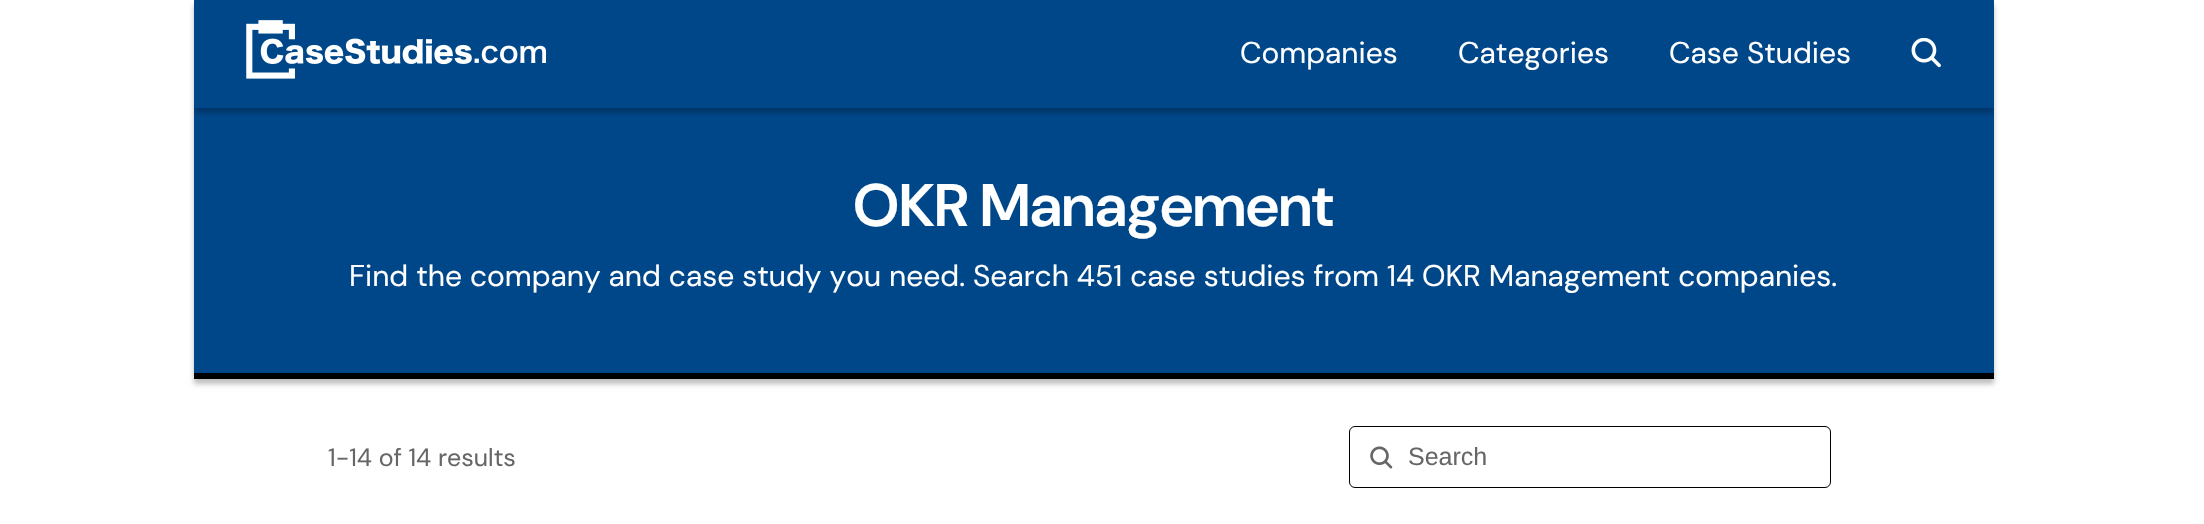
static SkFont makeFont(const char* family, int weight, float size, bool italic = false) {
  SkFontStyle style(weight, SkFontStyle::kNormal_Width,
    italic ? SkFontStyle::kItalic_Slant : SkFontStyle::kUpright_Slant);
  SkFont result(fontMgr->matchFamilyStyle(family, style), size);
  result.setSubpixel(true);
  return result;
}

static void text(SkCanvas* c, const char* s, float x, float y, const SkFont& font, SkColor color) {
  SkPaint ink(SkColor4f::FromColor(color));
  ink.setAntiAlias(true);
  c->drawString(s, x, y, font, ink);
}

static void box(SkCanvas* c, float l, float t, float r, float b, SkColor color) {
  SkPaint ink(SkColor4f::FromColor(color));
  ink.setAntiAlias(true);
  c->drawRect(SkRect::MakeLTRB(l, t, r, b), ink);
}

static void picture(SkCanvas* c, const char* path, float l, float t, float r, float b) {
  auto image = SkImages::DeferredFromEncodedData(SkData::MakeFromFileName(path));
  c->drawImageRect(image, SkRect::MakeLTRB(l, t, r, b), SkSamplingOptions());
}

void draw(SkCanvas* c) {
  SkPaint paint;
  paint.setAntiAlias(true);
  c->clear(0xffffffff);
  paint.setColor(0x40000000);
  paint.setMaskFilter(SkMaskFilter::MakeBlur(kNormal_SkBlurStyle, 2.5f));
  c->drawRect(SkRect::MakeLTRB(194, 113, 1994, 384), paint);
  paint.setMaskFilter(nullptr);
  box(c, 194, 108, 1994, 373, 0xff00478a);
  paint.setMaskFilter(SkMaskFilter::MakeBlur(kNormal_SkBlurStyle, 2.5f));
  c->drawRect(SkRect::MakeLTRB(194, 5, 1994, 113), paint);
  paint.setMaskFilter(nullptr);
  box(c, 194, 0, 1994, 108, 0xff00478a);
  picture(c, "img_01.png", 246, 20, 546, 79);
  SkFont face1 = makeFont("DM Sans", 400, 30);
  text(c, "Companies", 1240, 63, face1, 0xffffffff);
  text(c, "Categories", 1458, 63, face1, 0xffffffff);
  text(c, "Case Studies", 1669, 63, face1, 0xffffffff);
  picture(c, "img_02.png", 1911, 38, 1941, 68);
  box(c, 194, 373, 1994, 379, 0xff000000);
  SkFont face2 = makeFont("DM Sans", 600, 60);
  text(c, "OKR Management", 853, 226, face2, 0xffffffff);
  text(c, "Find the company and case study you need. Search 451 case studies from 14 OKR Management companies.", 349, 286, face1, 0xffffffff);
  SkFont face3 = makeFont("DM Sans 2", 400, 25);
  text(c, "1-14 of 14 results", 328, 466, face3, 0xff666666);
  paint.setStyle(SkPaint::kStroke_Style);
  paint.setStrokeWidth(1);
  paint.setColor(0xff000000);
  c->drawRoundRect(SkRect::MakeLTRB(1349.5f, 426.5f, 1830.5f, 487.5f), 5.5f, 5.5f, paint);
  picture(c, "img_03.png", 1370, 446, 1393, 469);
  SkFont face4 = makeFont("Liberation Sans", 400, 25);
  text(c, "Search", 1408, 465, face4, 0xff666666);
}
